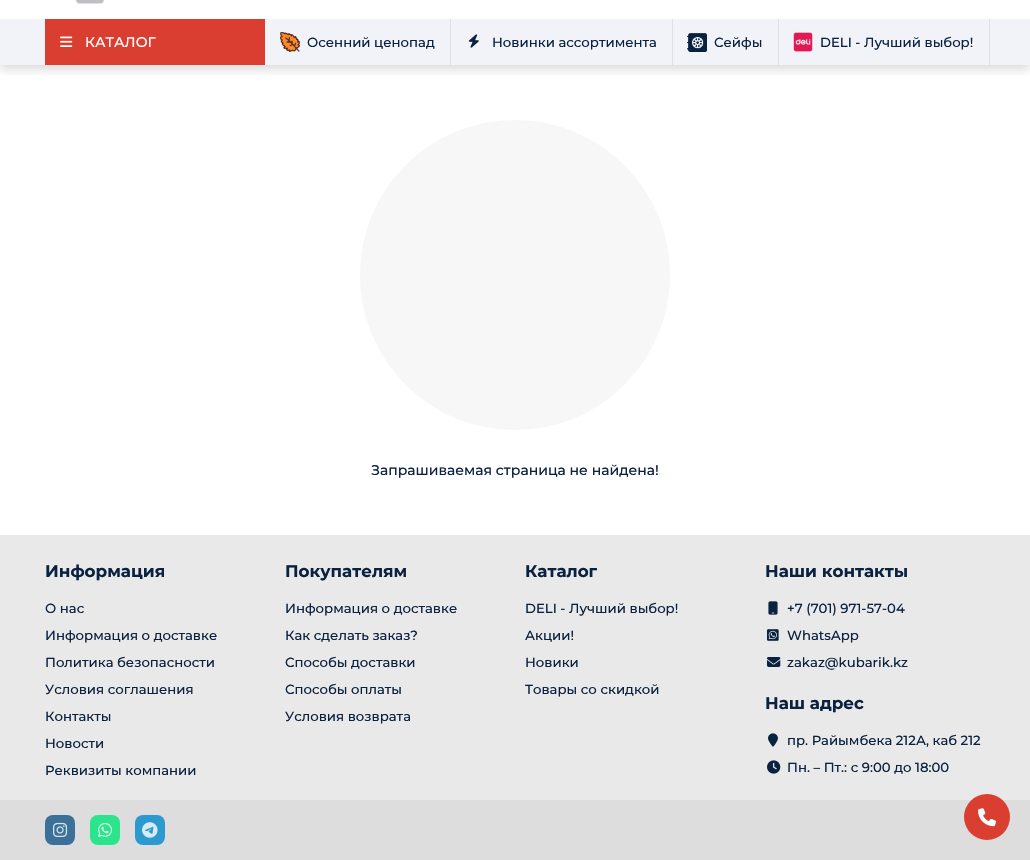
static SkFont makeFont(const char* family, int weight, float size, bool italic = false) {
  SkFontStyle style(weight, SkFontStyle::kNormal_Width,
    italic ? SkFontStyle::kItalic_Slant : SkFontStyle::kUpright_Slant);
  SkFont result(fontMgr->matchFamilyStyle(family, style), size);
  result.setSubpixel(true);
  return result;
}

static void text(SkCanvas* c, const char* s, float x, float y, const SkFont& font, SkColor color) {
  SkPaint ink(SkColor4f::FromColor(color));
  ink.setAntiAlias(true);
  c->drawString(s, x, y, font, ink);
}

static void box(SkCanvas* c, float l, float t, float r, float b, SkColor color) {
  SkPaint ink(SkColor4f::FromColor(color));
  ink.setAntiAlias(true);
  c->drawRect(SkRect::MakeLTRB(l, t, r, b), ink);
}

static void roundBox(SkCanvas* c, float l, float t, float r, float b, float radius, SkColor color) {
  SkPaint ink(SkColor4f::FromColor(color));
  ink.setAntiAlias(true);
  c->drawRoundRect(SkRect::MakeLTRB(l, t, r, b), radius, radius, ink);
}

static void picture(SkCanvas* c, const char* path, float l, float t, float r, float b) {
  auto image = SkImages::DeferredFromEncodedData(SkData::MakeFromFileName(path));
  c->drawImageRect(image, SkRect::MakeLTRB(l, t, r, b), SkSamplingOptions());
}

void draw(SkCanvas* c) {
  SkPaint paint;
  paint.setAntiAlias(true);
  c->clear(0xffffffff);
  c->save();
  c->clipRect(SkRect::MakeLTRB(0, 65, 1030, 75));
  paint.setColor(0x26000000);
  paint.setMaskFilter(SkMaskFilter::MakeBlur(kNormal_SkBlurStyle, 5));
  c->drawRect(SkRect::MakeLTRB(0, -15, 1030, 69), paint);
  paint.setMaskFilter(nullptr);
  c->restore();
  picture(c, "img_01.png", 75, 0, 104, 4);
  box(c, 0, 19, 1030, 65, 0xfff1f3f9);
  box(c, 45, 19, 265, 65, 0xffd93e30);
  picture(c, "img_02.png", 60, 36, 73, 47);
  SkFont face1 = makeFont("Montserrat", 500, 14);
  text(c, "КАТАЛОГ", 85, 47, face1, 0xffffffff);
  picture(c, "img_03.png", 280, 32, 300, 52);
  SkFont face2 = makeFont("Montserrat", 500, 13.25f);
  text(c, "Осенний ценопад", 307, 47, face2, 0xff0a213f);
  box(c, 450, 19, 451, 65, 0xffdee0e5);
  picture(c, "img_04.png", 468, 34, 479, 48);
  text(c, "Новинки ассортимента", 492, 47, face2, 0xff0a213f);
  box(c, 672, 19, 673, 65, 0xffdee0e5);
  picture(c, "img_05.png", 687, 33, 707, 52);
  text(c, "Сейфы", 714, 47, face2, 0xff0a213f);
  box(c, 778, 19, 779, 65, 0xffdee0e5);
  box(c, 989, 19, 990, 65, 0xffdee0e5);
  picture(c, "img_06.png", 793, 32, 813, 52);
  text(c, "DELI - Лучший выбор!", 820, 47, face2, 0xff0a213f);
  paint.setColor(0xfff7f7f7);
  c->drawCircle(515, 275, 155, paint);
  text(c, "Запрашиваемая страница не найдена!", 371, 475, face1, 0xff0a213f);
  box(c, 0, 535, 1030, 800, 0xffe9e9e9);
  SkFont face3 = makeFont("Montserrat", 700, 16.75f);
  text(c, "Информация", 45, 577, face3, 0xff0a213f);
  text(c, "О нас", 45, 613, face2, 0xff0a213f);
  text(c, "Информация о доставке", 45, 640, face2, 0xff0a213f);
  text(c, "Политика безопасности", 45, 667, face2, 0xff0a213f);
  text(c, "Условия соглашения", 45, 694, face2, 0xff0a213f);
  text(c, "Контакты", 45, 721, face2, 0xff0a213f);
  text(c, "Новости", 45, 748, face2, 0xff0a213f);
  text(c, "Реквизиты компании", 45, 775, face2, 0xff0a213f);
  text(c, "Покупателям", 285, 577, face3, 0xff0a213f);
  text(c, "Информация о доставке", 285, 613, face2, 0xff0a213f);
  text(c, "Как сделать заказ?", 285, 640, face2, 0xff0a213f);
  text(c, "Способы доставки", 285, 667, face2, 0xff0a213f);
  text(c, "Способы оплаты", 285, 694, face2, 0xff0a213f);
  text(c, "Условия возврата", 285, 721, face2, 0xff0a213f);
  text(c, "Каталог", 525, 577, face3, 0xff0a213f);
  text(c, "DELI - Лучший выбор!", 525, 613, face2, 0xff0a213f);
  text(c, "Акции!", 525, 640, face2, 0xff0a213f);
  text(c, "Новики", 525, 667, face2, 0xff0a213f);
  text(c, "Товары со скидкой", 525, 694, face2, 0xff0a213f);
  text(c, "Наши контакты", 765, 577, face3, 0xff0a213f);
  picture(c, "img_07.png", 768, 601, 778, 615);
  text(c, "+7 (701) 971-57-04", 787, 613, face2, 0xff0a213f);
  picture(c, "img_08.png", 767, 629, 779, 641);
  text(c, "WhatsApp", 787, 640, face2, 0xff0a213f);
  picture(c, "img_09.png", 767, 657, 781, 667);
  text(c, "zakaz@kubarik.kz", 787, 667, face2, 0xff0a213f);
  text(c, "Наш адрес", 765, 709, face3, 0xff0a213f);
  picture(c, "img_10.png", 768, 733, 778, 747);
  text(c, "пр. Райымбека 212А, каб 212", 787, 745, face2, 0xff0a213f);
  picture(c, "img_11.png", 767, 760, 781, 774);
  text(c, "Пн. – Пт.: с 9:00 до 18:00", 787, 772, face2, 0xff0a213f);
  box(c, 0, 800, 1030, 860, 0xffdddddd);
  roundBox(c, 45, 815, 75, 845, 8, 0xff3b7199);
  picture(c, "img_12.png", 53, 822, 68, 837);
  roundBox(c, 90, 815, 120, 845, 8, 0xff2ce48b);
  picture(c, "img_13.png", 98, 822, 113, 837);
  roundBox(c, 135, 815, 165, 845, 8, 0xff2c99cf);
  picture(c, "img_14.png", 142, 822, 158, 838);
  paint.setColor(0xffd93e30);
  c->drawCircle(987, 817, 23, paint);
  picture(c, "img_15.png", 978, 808, 996, 827);
}
